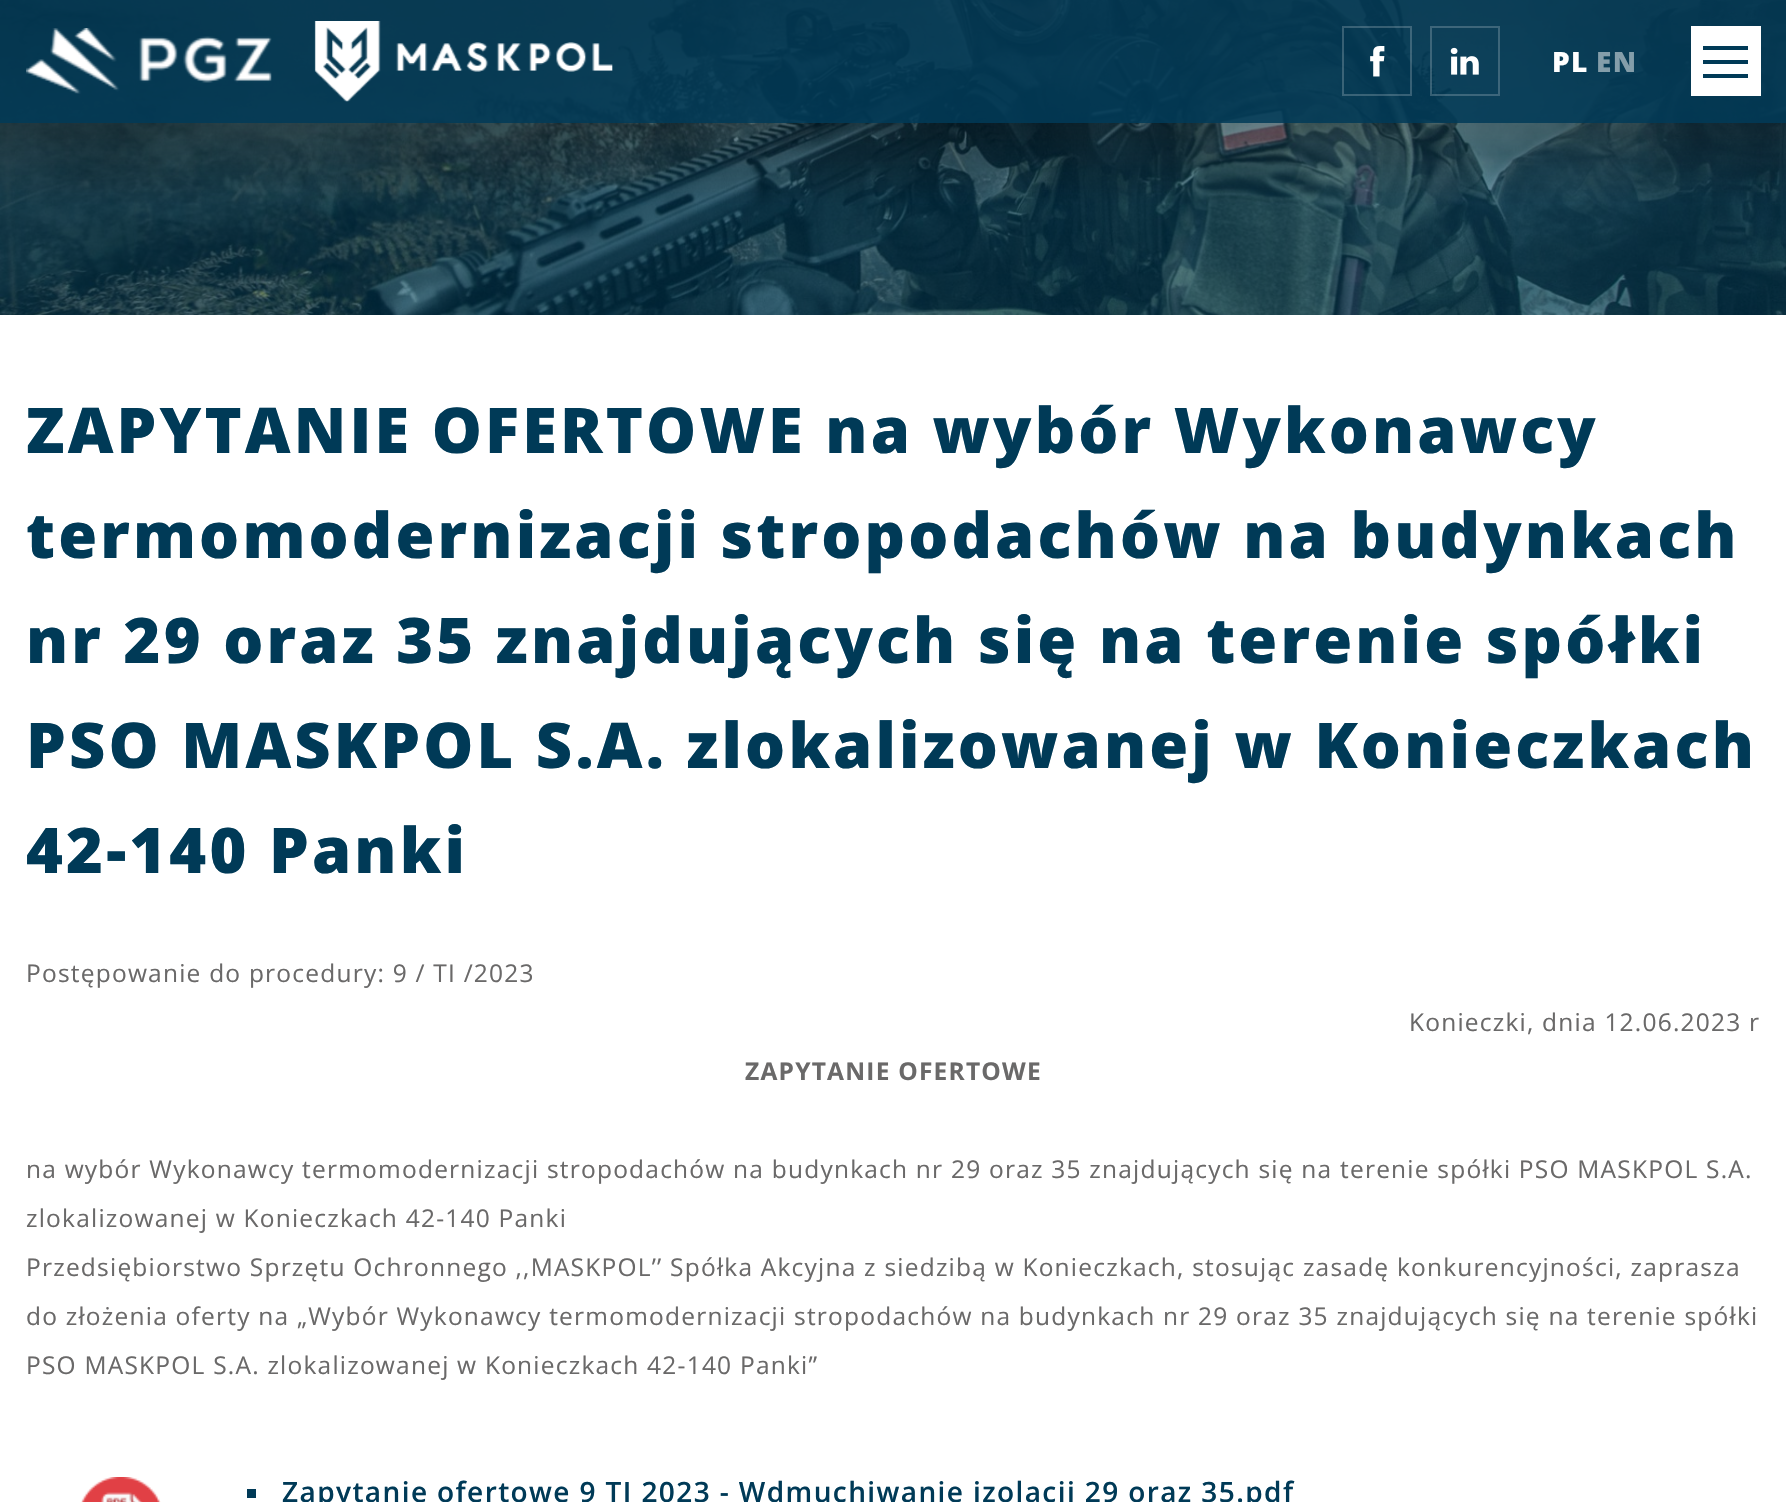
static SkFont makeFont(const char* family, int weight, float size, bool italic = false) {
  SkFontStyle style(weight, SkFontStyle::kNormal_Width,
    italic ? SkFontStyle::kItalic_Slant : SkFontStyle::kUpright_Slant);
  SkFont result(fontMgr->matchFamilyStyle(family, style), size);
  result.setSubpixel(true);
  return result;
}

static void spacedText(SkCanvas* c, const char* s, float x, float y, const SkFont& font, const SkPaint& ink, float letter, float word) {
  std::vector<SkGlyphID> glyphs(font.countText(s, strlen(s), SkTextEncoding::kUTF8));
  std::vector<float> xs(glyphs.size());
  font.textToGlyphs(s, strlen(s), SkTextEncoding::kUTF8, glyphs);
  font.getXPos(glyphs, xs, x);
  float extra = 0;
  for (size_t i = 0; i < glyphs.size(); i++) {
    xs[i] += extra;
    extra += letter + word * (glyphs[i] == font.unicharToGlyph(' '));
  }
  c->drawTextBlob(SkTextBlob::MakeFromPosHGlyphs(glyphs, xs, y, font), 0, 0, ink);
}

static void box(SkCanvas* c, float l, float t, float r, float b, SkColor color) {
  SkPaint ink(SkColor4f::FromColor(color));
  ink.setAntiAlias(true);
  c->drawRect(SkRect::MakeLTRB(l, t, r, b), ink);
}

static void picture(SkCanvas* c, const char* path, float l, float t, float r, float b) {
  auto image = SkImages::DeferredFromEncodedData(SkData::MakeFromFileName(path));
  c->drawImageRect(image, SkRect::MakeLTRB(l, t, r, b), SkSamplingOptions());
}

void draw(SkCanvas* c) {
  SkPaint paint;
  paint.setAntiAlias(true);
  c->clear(0xffffffff);
  picture(c, "img_05.png", 0, 0, 1786, 315);
  box(c, 0, 0, 1786, 123, 0xd9003a57);
  picture(c, "img_01.png", 26, 28, 272, 94);
  picture(c, "img_02.png", 314, 21, 613, 102);
  paint.setStyle(SkPaint::kStroke_Style);
  paint.setStrokeWidth(2);
  paint.setColor(0x33ffffff);
  c->drawRect(SkRect::MakeLTRB(1343, 27, 1411, 95), paint);
  picture(c, "img_03.png", 1370, 46, 1385, 77);
  c->drawRect(SkRect::MakeLTRB(1431, 27, 1499, 95), paint);
  picture(c, "img_04.png", 1450, 47, 1479, 75);
  SkFont face1 = makeFont("Open Sans", 800, 28);
  paint.setStyle(SkPaint::kFill_Style);
  paint.setColor(0xffffffff);
  spacedText(c, "PL", 1552, 72, face1, paint, 1.4f, 0);
  paint.setColor(0xff849eaa);
  spacedText(c, "EN", 1596, 72, face1, paint, 1.4f, 0);
  box(c, 1691, 26, 1761, 96, 0xffffffff);
  box(c, 1703, 46, 1748, 50, 0xff003a57);
  box(c, 1703, 60, 1748, 64, 0xff003a57);
  box(c, 1703, 74, 1748, 78, 0xff003a57);
  SkFont face2 = makeFont("Open Sans", 800, 63);
  paint.setColor(0xff003a57);
  spacedText(c, "ZAPYTANIE OFERTOWE na wybór Wykonawcy", 26, 453, face2, paint, 3.15f, 0);
  spacedText(c, "termomodernizacji stropodachów na budynkach", 26, 558, face2, paint, 3.15f, 0);
  spacedText(c, "nr 29 oraz 35 znajdujących się na terenie spółki", 26, 663, face2, paint, 3.15f, 0);
  spacedText(c, "PSO MASKPOL S.A. zlokalizowanej w Konieczkach", 26, 768, face2, paint, 3.15f, 0);
  spacedText(c, "42-140 Panki", 26, 873, face2, paint, 3.15f, 0);
  SkFont face3 = makeFont("Open Sans", 400, 24.5f);
  paint.setColor(0xff6a6969);
  spacedText(c, "Postępowanie do procedury: 9 / TI /2023", 26, 982, face3, paint, 1.22f, 0);
  spacedText(c, "Konieczki, dnia 12.06.2023 r", 1409, 1031, face3, paint, 1.22f, 0);
  SkFont face4 = makeFont("Open Sans", 700, 24.5f);
  spacedText(c, "ZAPYTANIE OFERTOWE", 745, 1080, face4, paint, 1.22f, 0);
  spacedText(c, "na wybór Wykonawcy termomodernizacji stropodachów na budynkach nr 29 oraz 35 znajdujących się na terenie spółki PSO MASKPOL S.A.", 26, 1178, face3, paint, 1.22f, 0);
  spacedText(c, "zlokalizowanej w Konieczkach 42-140 Panki", 26, 1227, face3, paint, 1.22f, 0);
  spacedText(c, "Przedsiębiorstwo Sprzętu Ochronnego ,,MASKPOL’’ Spółka Akcyjna z siedzibą w Konieczkach, stosując zasadę konkurencyjności, zaprasza", 26, 1276, face3, paint, 1.22f, 0);
  spacedText(c, "do złożenia oferty na „Wybór Wykonawcy termomodernizacji stropodachów na budynkach nr 29 oraz 35 znajdujących się na terenie spółki", 26, 1325, face3, paint, 1.22f, 0);
  spacedText(c, "PSO MASKPOL S.A. zlokalizowanej w Konieczkach 42-140 Panki”", 26, 1374, face3, paint, 1.22f, 0);
  box(c, 247, 1489, 256, 1498, 0xff003a57);
  picture(c, "img_06.png", 81, 1477, 161, 1502);
  SkFont face5 = makeFont("Open Sans", 600, 28);
  paint.setColor(0xff003a57);
  spacedText(c, "Zapytanie ofertowe 9 TI 2023 - Wdmuchiwanie izolacji 29 oraz 35.pdf", 282, 1502, face5, paint, 1.4f, 0);
}
